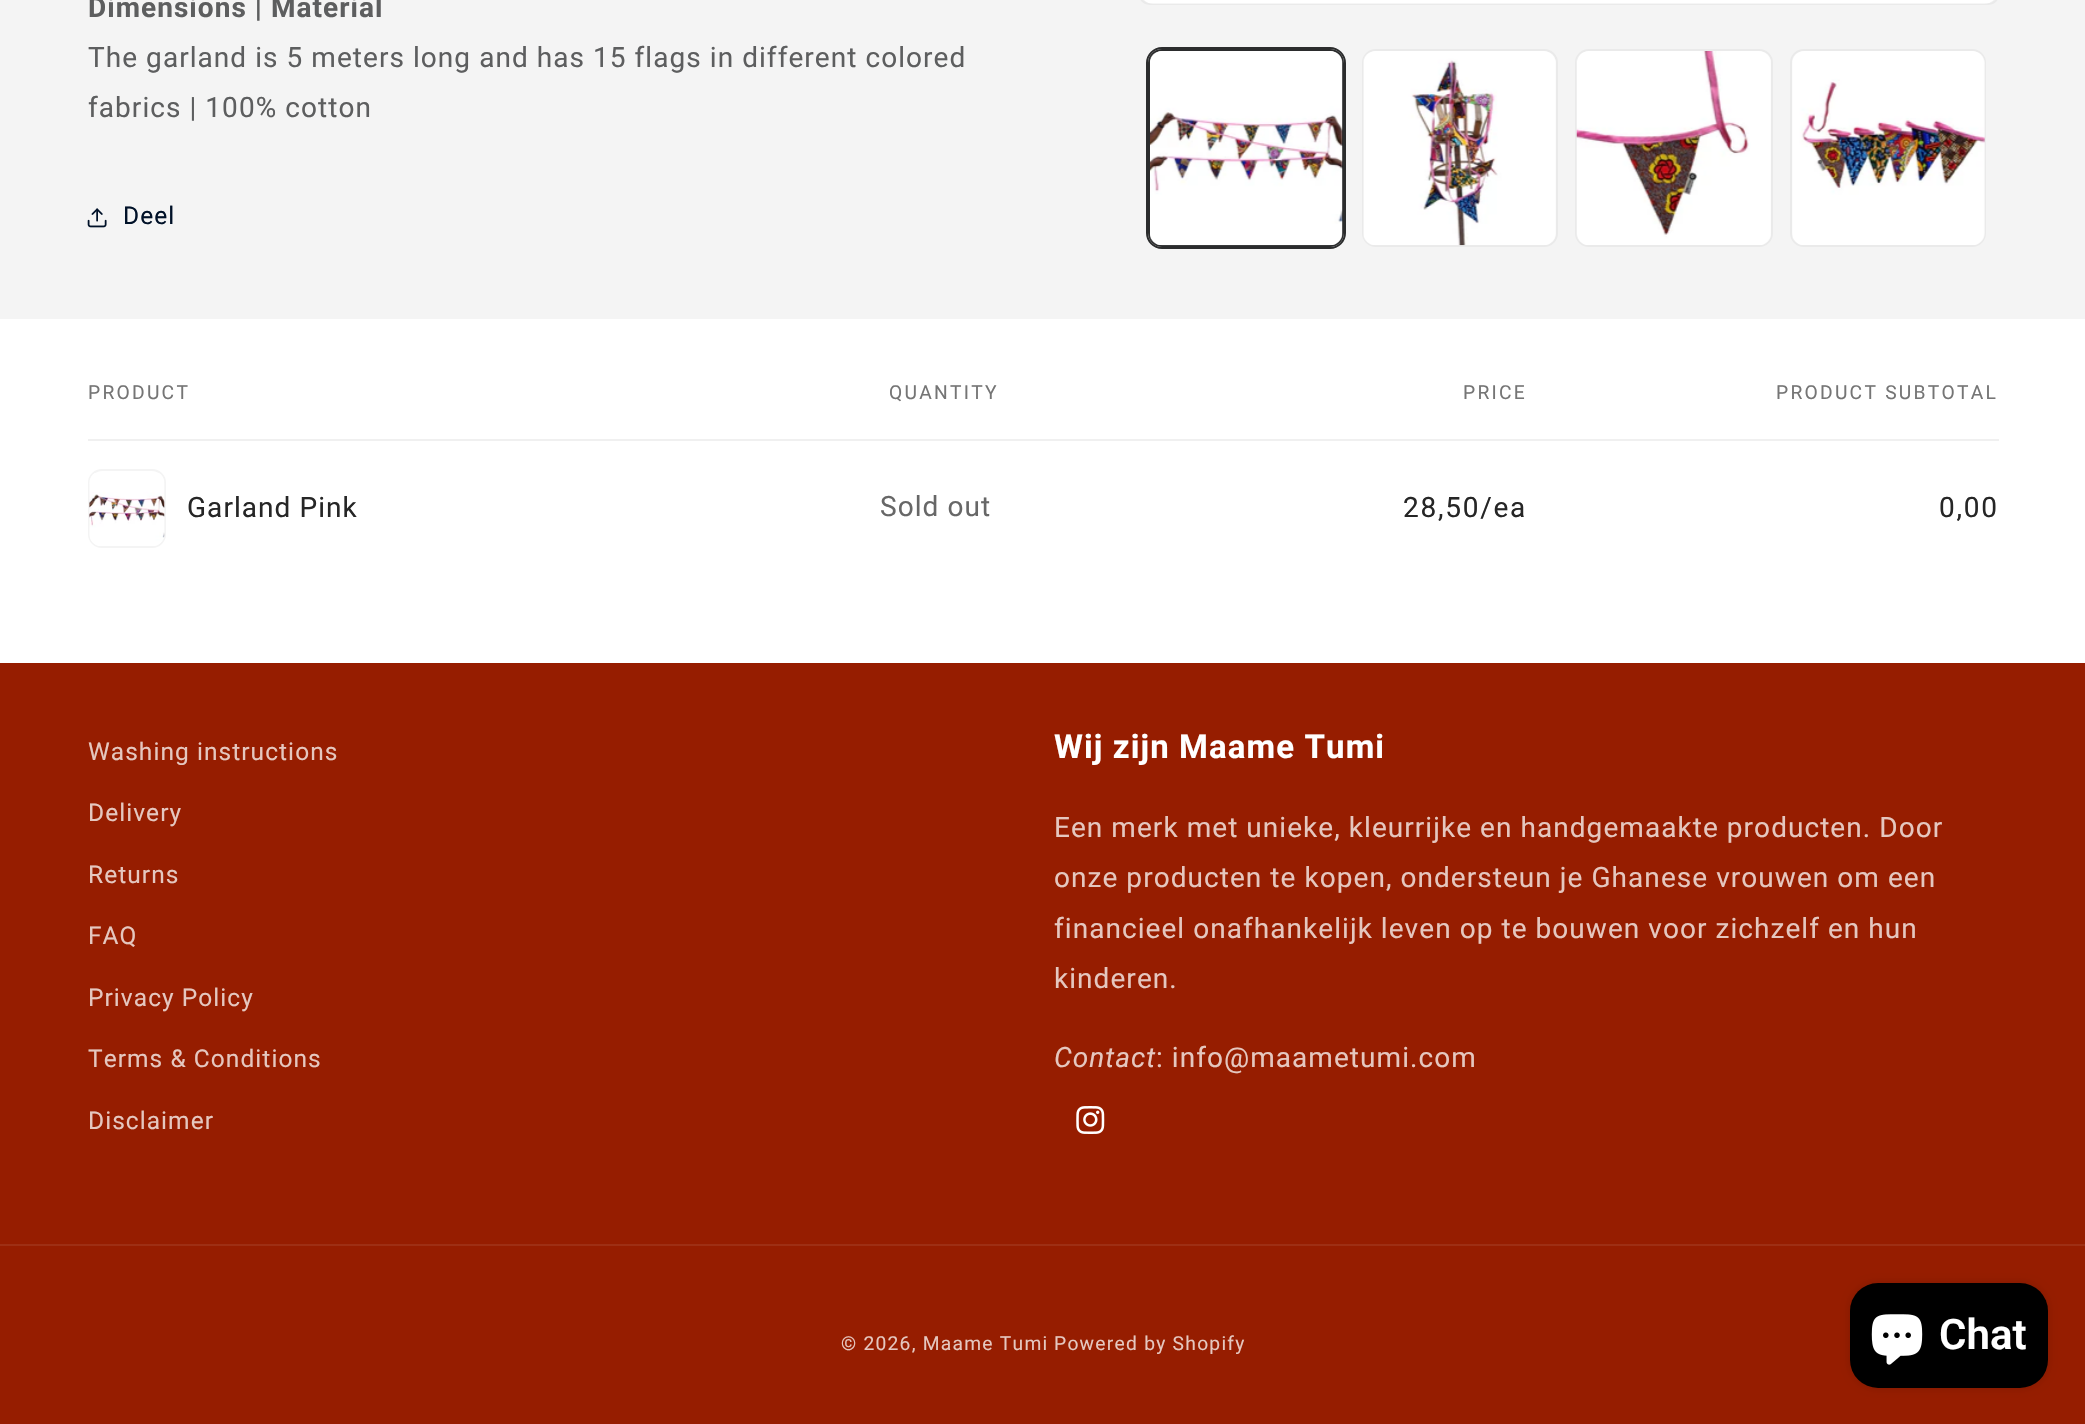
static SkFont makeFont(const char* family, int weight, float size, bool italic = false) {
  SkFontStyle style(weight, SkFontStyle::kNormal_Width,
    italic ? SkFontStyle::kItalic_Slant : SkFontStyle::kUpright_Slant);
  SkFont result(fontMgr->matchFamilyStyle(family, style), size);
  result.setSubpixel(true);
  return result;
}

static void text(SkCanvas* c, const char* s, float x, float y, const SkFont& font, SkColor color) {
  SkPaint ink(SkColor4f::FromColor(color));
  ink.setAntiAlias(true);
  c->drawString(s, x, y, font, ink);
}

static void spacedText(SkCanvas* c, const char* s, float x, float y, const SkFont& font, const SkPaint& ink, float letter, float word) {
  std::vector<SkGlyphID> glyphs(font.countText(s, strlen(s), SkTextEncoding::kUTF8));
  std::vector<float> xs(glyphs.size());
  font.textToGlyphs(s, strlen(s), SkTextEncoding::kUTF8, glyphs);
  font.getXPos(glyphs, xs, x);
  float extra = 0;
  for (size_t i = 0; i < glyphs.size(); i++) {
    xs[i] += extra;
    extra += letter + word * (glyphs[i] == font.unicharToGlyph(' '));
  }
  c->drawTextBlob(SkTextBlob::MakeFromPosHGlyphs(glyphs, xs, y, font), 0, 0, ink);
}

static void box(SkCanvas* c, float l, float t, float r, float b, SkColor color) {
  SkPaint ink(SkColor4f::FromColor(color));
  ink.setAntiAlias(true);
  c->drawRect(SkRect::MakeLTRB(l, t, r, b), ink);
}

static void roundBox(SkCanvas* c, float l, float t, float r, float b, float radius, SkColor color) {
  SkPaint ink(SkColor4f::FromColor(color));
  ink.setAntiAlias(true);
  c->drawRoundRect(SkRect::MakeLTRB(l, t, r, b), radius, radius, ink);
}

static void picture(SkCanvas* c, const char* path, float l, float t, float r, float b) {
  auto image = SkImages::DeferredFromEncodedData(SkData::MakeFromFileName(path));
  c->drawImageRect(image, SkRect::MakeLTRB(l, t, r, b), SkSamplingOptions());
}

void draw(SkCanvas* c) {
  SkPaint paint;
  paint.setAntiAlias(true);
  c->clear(0xfff4f4f4);
  SkFont face1 = makeFont("Roboto", 700, 28);
  paint.setColor(0xff5d5e5f);
  spacedText(c, "Dimensions | Material", 88, 17, face1, paint, 1.05f, 0);
  SkFont face2 = makeFont("Roboto", 400, 28);
  spacedText(c, "The garland is 5 meters long and has 15 flags in different colored", 88, 67, face2, paint, 1.05f, 0);
  spacedText(c, "fabrics | 100% cotton", 88, 117, face2, paint, 1.05f, 0);
  picture(c, "img_01.png", 87, 208, 107, 228);
  SkFont face3 = makeFont("Roboto", 400, 24.5f);
  paint.setColor(0xff001128);
  spacedText(c, "Deel", 123, 224, face3, paint, 1.05f, 0);
  paint.setStyle(SkPaint::kStroke_Style);
  paint.setStrokeWidth(2);
  paint.setColor(0xffeaeaea);
  c->drawRoundRect(SkRect::MakeLTRB(1140, -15, 1998, 4), 13, 13, paint);
  picture(c, "img_02.png", 1144, 0, 1993, 4);
  paint.setColor(0xff2b2c2d);
  c->drawRoundRect(SkRect::MakeLTRB(1147, 48, 1345, 248), 15, 15, paint);
  c->drawRoundRect(SkRect::MakeLTRB(1149, 50, 1343, 246), 13, 13, paint);
  picture(c, "img_03.png", 1150, 51, 1343, 246);
  paint.setColor(0xffeaeaea);
  c->drawRoundRect(SkRect::MakeLTRB(1363, 50, 1557, 246), 13, 13, paint);
  picture(c, "img_04.png", 1363, 51, 1556, 246);
  c->drawRoundRect(SkRect::MakeLTRB(1576, 50, 1772, 246), 13, 13, paint);
  picture(c, "img_05.png", 1576, 51, 1771, 245);
  c->drawRoundRect(SkRect::MakeLTRB(1791, 50, 1985, 246), 13, 13, paint);
  picture(c, "img_06.png", 1792, 51, 1985, 245);
  box(c, 0, 319, 2085, 663, 0xffffffff);
  box(c, 88, 439, 1999, 441, 0xfff0f0f0);
  SkFont face4 = makeFont("Roboto", 400, 19.25f);
  paint.setStyle(SkPaint::kFill_Style);
  paint.setColor(0xff757575);
  spacedText(c, "PRODUCT", 88, 399, face4, paint, 2.25f, 0);
  spacedText(c, "QUANTITY", 889, 399, face4, paint, 2.25f, 0);
  spacedText(c, "PRICE", 1463, 399, face4, paint, 2.25f, 0);
  spacedText(c, "PRODUCT SUBTOTAL", 1776, 399, face4, paint, 2.25f, 0);
  paint.setStyle(SkPaint::kStroke_Style);
  paint.setColor(0xfff4f4f4);
  c->drawRoundRect(SkRect::MakeLTRB(89, 470, 165, 547), 13, 13, paint);
  picture(c, "img_07.png", 89, 473, 165, 546);
  paint.setStyle(SkPaint::kFill_Style);
  paint.setColor(0xff262626);
  spacedText(c, "Garland Pink", 187, 517, face2, paint, 1.05f, 0);
  paint.setColor(0xff676767);
  spacedText(c, "Sold out", 880, 516, face2, paint, 1.05f, 0);
  paint.setColor(0xff262626);
  spacedText(c, "28,50/ea", 1403, 517, face2, paint, 1.75f, 0);
  spacedText(c, "0,00", 1939, 517, face2, paint, 1.75f, 0);
  box(c, 0, 663, 2085, 1424, 0xff961d00);
  paint.setColor(0xffe5c7bf);
  spacedText(c, "Washing instructions", 88, 760, face3, paint, 1.05f, 0);
  spacedText(c, "Delivery", 88, 821, face3, paint, 1.05f, 0);
  spacedText(c, "Returns", 88, 883, face3, paint, 1.05f, 0);
  spacedText(c, "FAQ", 88, 944, face3, paint, 1.05f, 0);
  spacedText(c, "Privacy Policy", 88, 1006, face3, paint, 1.05f, 0);
  spacedText(c, "Terms & Conditions", 88, 1067, face3, paint, 1.05f, 0);
  spacedText(c, "Disclaimer", 88, 1129, face3, paint, 1.05f, 0);
  SkFont face5 = makeFont("Roboto", 700, 33);
  paint.setColor(0xffffffff);
  spacedText(c, "Wij zijn Maame Tumi", 1054, 758, face5, paint, 1.1f, 0);
  paint.setColor(0xffe5c7bf);
  spacedText(c, "Een merk met unieke, kleurrijke en handgemaakte producten. Door", 1054, 837, face2, paint, 1.05f, 0);
  spacedText(c, "onze producten te kopen, ondersteun je Ghanese vrouwen om een", 1054, 887, face2, paint, 1.05f, 0);
  spacedText(c, "financieel onafhankelijk leven op te bouwen voor zichzelf en hun", 1054, 938, face2, paint, 1.05f, 0);
  spacedText(c, "kinderen.", 1054, 988, face2, paint, 1.05f, 0);
  SkFont face6 = makeFont("Roboto", 400, 28, true);
  spacedText(c, "Contact", 1054, 1067, face6, paint, 1.05f, 0);
  spacedText(c, ": info@maametumi.com", 1156, 1067, face2, paint, 1.05f, 0);
  picture(c, "img_08.png", 1076, 1106, 1105, 1134);
  box(c, 0, 1244, 2085, 1246, 0xff9e2f14);
  spacedText(c, "© 2026, Maame Tumi", 841, 1350, face4, paint, 1.25f, 0);
  spacedText(c, "Powered by Shopify", 1054, 1350, face4, paint, 1.25f, 0);
  paint.setColor(0x26000000);
  paint.setMaskFilter(SkMaskFilter::MakeBlur(kNormal_SkBlurStyle, 4.5f));
  c->drawRoundRect(SkRect::MakeLTRB(1850, 1283, 2048, 1388), 28, 28, paint);
  paint.setMaskFilter(nullptr);
  roundBox(c, 1850, 1283, 2048, 1388, 28, 0xff000000);
  picture(c, "img_09.png", 1871, 1314, 1923, 1365);
  SkFont face7 = makeFont("Roboto", 600, 42);
  text(c, "Chat", 1939, 1349, face7, 0xffffffff);
}
